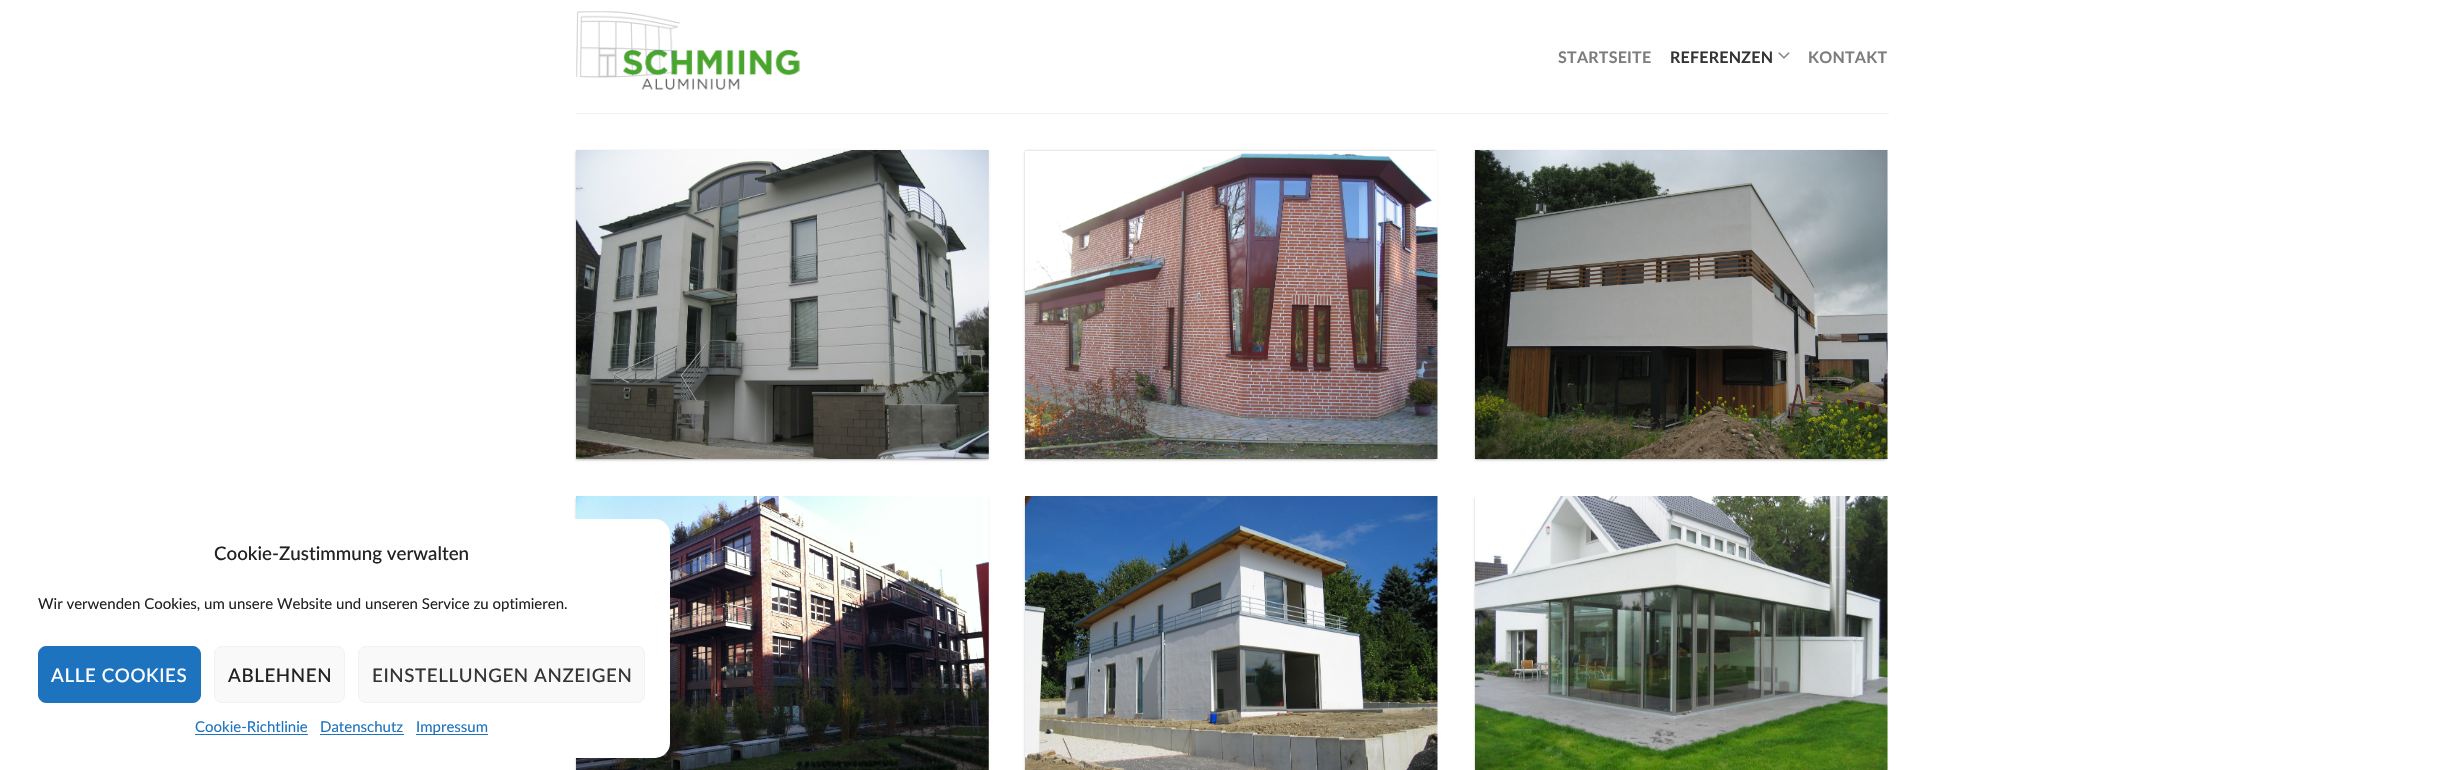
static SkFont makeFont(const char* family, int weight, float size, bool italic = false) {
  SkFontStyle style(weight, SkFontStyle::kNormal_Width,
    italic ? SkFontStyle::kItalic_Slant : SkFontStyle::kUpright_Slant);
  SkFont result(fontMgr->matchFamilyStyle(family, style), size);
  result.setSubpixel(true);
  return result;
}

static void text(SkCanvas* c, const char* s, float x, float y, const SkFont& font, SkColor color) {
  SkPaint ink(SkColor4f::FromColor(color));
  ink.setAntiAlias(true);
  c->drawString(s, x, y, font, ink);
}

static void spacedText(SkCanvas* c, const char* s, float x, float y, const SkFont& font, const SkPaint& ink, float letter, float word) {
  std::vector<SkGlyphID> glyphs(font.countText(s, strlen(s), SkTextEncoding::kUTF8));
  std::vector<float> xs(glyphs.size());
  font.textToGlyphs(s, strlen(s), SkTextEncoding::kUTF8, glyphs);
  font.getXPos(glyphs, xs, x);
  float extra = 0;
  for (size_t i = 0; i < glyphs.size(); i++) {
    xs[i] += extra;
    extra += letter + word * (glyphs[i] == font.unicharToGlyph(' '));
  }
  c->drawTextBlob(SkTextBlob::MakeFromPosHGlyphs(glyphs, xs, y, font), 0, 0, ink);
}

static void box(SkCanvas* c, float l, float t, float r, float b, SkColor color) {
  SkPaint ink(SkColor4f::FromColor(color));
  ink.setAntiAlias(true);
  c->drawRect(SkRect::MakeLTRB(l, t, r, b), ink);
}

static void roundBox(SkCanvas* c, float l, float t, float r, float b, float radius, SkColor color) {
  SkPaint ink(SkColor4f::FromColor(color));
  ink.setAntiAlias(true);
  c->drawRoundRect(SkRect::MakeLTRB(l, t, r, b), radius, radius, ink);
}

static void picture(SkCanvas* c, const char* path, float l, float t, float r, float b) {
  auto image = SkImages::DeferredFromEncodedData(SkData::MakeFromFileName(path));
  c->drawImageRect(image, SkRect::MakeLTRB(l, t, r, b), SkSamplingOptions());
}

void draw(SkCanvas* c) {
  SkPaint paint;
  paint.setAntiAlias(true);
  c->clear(0xffffffff);
  picture(c, "img_01.png", 576, 11, 800, 90);
  SkFont face1 = makeFont("Lato", 700, 16);
  paint.setColor(0xff7d7d7d);
  spacedText(c, "STARTSEITE", 1558, 63, face1, paint, 0.25f, 0);
  paint.setColor(0xff353535);
  spacedText(c, "REFERENZEN", 1670, 63, face1, paint, 0.25f, 0);
  picture(c, "img_02.png", 1778, 52, 1790, 59);
  paint.setColor(0xff7d7d7d);
  spacedText(c, "KONTAKT", 1808, 63, face1, paint, 0.25f, 0);
  box(c, 576, 113, 1889, 114, 0xfff1f1f1);
  paint.setColor(0x3d000000);
  paint.setMaskFilter(SkMaskFilter::MakeBlur(kNormal_SkBlurStyle, 1));
  c->drawRect(SkRect::MakeLTRB(576, 151, 988, 460), paint);
  paint.setMaskFilter(nullptr);
  paint.setColor(0x1f000000);
  paint.setMaskFilter(SkMaskFilter::MakeBlur(kNormal_SkBlurStyle, 2));
  c->drawRect(SkRect::MakeLTRB(579, 154, 985, 458), paint);
  paint.setMaskFilter(nullptr);
  picture(c, "img_03.png", 576, 150, 989, 459);
  paint.setColor(0x3d000000);
  paint.setMaskFilter(SkMaskFilter::MakeBlur(kNormal_SkBlurStyle, 1));
  c->drawRect(SkRect::MakeLTRB(1025, 151, 1436, 460), paint);
  paint.setMaskFilter(nullptr);
  paint.setColor(0x1f000000);
  paint.setMaskFilter(SkMaskFilter::MakeBlur(kNormal_SkBlurStyle, 2));
  c->drawRect(SkRect::MakeLTRB(1028, 154, 1434, 458), paint);
  paint.setMaskFilter(nullptr);
  picture(c, "img_04.png", 1025, 151, 1438, 459);
  paint.setColor(0x3d000000);
  paint.setMaskFilter(SkMaskFilter::MakeBlur(kNormal_SkBlurStyle, 1));
  c->drawRect(SkRect::MakeLTRB(1475, 151, 1886, 460), paint);
  paint.setMaskFilter(nullptr);
  paint.setColor(0x1f000000);
  paint.setMaskFilter(SkMaskFilter::MakeBlur(kNormal_SkBlurStyle, 2));
  c->drawRect(SkRect::MakeLTRB(1478, 154, 1884, 458), paint);
  paint.setMaskFilter(nullptr);
  picture(c, "img_05.png", 1475, 150, 1888, 459);
  paint.setColor(0x3d000000);
  paint.setMaskFilter(SkMaskFilter::MakeBlur(kNormal_SkBlurStyle, 1));
  c->drawRect(SkRect::MakeLTRB(576, 498, 988, 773), paint);
  paint.setMaskFilter(nullptr);
  picture(c, "img_06.png", 576, 496, 989, 770);
  paint.setMaskFilter(SkMaskFilter::MakeBlur(kNormal_SkBlurStyle, 1));
  c->drawRect(SkRect::MakeLTRB(1025, 498, 1436, 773), paint);
  paint.setMaskFilter(nullptr);
  picture(c, "img_07.png", 1025, 496, 1438, 770);
  paint.setMaskFilter(SkMaskFilter::MakeBlur(kNormal_SkBlurStyle, 1));
  c->drawRect(SkRect::MakeLTRB(1475, 498, 1886, 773), paint);
  paint.setMaskFilter(nullptr);
  picture(c, "img_08.png", 1475, 496, 1888, 770);
  roundBox(c, 13, 519, 670, 758, 15, 0xffffffff);
  SkFont face2 = makeFont("Lato", 500, 18.75f);
  text(c, "Cookie-Zustimmung verwalten", 214, 560, face2, 0xff222222);
  SkFont face3 = makeFont("Lato", 400, 15);
  text(c, "Wir verwenden Cookies, um unsere Website und unseren Service zu optimieren.", 38, 609, face3, 0xff222222);
  paint.setColor(0xff1e73be);
  c->drawRoundRect(SkRect::MakeLTRB(38.5f, 646.5f, 200.5f, 702.5f), 7.5f, 7.5f, paint);
  paint.setStyle(SkPaint::kStroke_Style);
  paint.setStrokeWidth(1);
  c->drawRoundRect(SkRect::MakeLTRB(38.5f, 646.5f, 200.5f, 702.5f), 7.5f, 7.5f, paint);
  paint.setStyle(SkPaint::kFill_Style);
  paint.setColor(0xffffffff);
  spacedText(c, "ALLE COOKIES", 51, 682, face2, paint, 0.6f, 0);
  paint.setColor(0xfff9f9f9);
  c->drawRoundRect(SkRect::MakeLTRB(214.5f, 646.5f, 344.5f, 702.5f), 7.5f, 7.5f, paint);
  paint.setStyle(SkPaint::kStroke_Style);
  paint.setColor(0xfff2f2f2);
  c->drawRoundRect(SkRect::MakeLTRB(214.5f, 646.5f, 344.5f, 702.5f), 7.5f, 7.5f, paint);
  paint.setStyle(SkPaint::kFill_Style);
  paint.setColor(0xff222222);
  spacedText(c, "ABLEHNEN", 228, 682, face2, paint, 0.6f, 0);
  paint.setColor(0xfff9f9f9);
  c->drawRoundRect(SkRect::MakeLTRB(358.5f, 646.5f, 644.5f, 702.5f), 7.5f, 7.5f, paint);
  paint.setStyle(SkPaint::kStroke_Style);
  paint.setColor(0xfff2f2f2);
  c->drawRoundRect(SkRect::MakeLTRB(358.5f, 646.5f, 644.5f, 702.5f), 7.5f, 7.5f, paint);
  paint.setStyle(SkPaint::kFill_Style);
  paint.setColor(0xff353535);
  spacedText(c, "EINSTELLUNGEN ANZEIGEN", 372, 682, face2, paint, 0.6f, 0);
  text(c, "Cookie-Richtlinie", 195, 732, face3, 0xff1e73be);
  box(c, 195, 734, 308, 735, 0xff1e73be);
  text(c, "Datenschutz", 320, 732, face3, 0xff1e73be);
  box(c, 320, 734, 404, 735, 0xff1e73be);
  box(c, 416, 734, 488, 735, 0xff1e73be);
  text(c, "Impressum", 416, 732, face3, 0xff1e73be);
}
